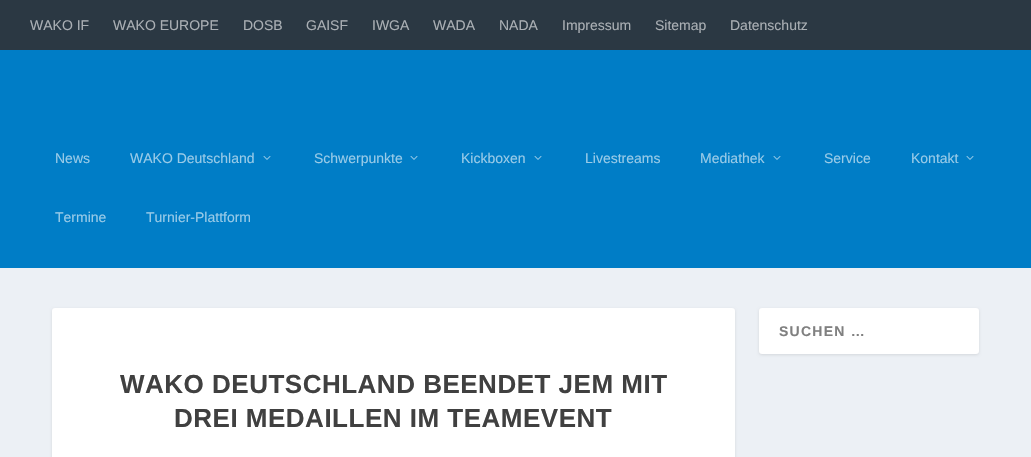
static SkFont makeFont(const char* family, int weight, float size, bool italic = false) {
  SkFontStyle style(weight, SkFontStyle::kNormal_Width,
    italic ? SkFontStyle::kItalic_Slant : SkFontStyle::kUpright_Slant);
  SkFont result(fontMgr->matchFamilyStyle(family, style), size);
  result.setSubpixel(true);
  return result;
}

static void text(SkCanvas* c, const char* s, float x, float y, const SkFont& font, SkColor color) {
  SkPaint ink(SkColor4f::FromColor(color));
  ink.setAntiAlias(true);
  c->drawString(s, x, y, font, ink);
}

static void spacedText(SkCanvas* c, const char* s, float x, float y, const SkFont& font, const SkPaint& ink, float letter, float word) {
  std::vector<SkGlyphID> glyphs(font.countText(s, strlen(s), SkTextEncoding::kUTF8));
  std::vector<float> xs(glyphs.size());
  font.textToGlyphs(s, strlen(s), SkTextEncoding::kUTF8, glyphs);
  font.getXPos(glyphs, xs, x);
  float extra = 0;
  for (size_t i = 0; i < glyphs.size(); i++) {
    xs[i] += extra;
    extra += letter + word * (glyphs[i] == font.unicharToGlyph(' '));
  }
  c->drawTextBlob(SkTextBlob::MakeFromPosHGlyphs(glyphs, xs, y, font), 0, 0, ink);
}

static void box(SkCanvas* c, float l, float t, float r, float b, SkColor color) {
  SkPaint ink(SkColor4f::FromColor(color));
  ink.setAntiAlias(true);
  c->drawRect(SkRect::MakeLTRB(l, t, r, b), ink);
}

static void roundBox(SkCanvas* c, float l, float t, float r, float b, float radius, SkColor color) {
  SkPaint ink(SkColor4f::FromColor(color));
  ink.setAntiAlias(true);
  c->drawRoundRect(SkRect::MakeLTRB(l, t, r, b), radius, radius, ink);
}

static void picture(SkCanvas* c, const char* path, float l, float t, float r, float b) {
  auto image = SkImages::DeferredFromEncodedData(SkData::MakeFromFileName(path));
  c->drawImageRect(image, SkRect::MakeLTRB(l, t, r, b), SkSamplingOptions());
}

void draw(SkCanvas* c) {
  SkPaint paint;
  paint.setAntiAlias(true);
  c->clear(0xffecf0f5);
  box(c, 0, 0, 1031, 50, 0xff2b3843);
  SkFont face1 = makeFont("Liberation Sans", 400, 14);
  text(c, "WAKO IF", 30, 30, face1, 0xffaaafb4);
  text(c, "WAKO EUROPE", 113, 30, face1, 0xffaaafb4);
  text(c, "DOSB", 243, 30, face1, 0xffaaafb4);
  text(c, "GAISF", 306, 30, face1, 0xffaaafb4);
  text(c, "IWGA", 372, 30, face1, 0xffaaafb4);
  text(c, "WADA", 433, 30, face1, 0xffaaafb4);
  text(c, "NADA", 499, 30, face1, 0xffaaafb4);
  text(c, "Impressum", 562, 30, face1, 0xffaaafb4);
  text(c, "Sitemap", 655, 30, face1, 0xffaaafb4);
  text(c, "Datenschutz", 730, 30, face1, 0xffaaafb4);
  box(c, 0, 50, 1031, 268, 0xff007dc6);
  text(c, "News", 55, 163, face1, 0xff99cbe8);
  text(c, "WAKO Deutschland", 130, 163, face1, 0xff99cbe8);
  picture(c, "img_01.png", 263, 156, 271, 160);
  text(c, "Schwerpunkte", 314, 163, face1, 0xff99cbe8);
  picture(c, "img_01.png", 410, 156, 418, 160);
  text(c, "Kickboxen", 461, 163, face1, 0xff99cbe8);
  picture(c, "img_01.png", 534, 156, 542, 160);
  text(c, "Livestreams", 585, 163, face1, 0xff99cbe8);
  text(c, "Mediathek", 700, 163, face1, 0xff99cbe8);
  picture(c, "img_01.png", 773, 156, 781, 160);
  text(c, "Service", 824, 163, face1, 0xff99cbe8);
  text(c, "Kontakt", 911, 163, face1, 0xff99cbe8);
  picture(c, "img_01.png", 966, 156, 974, 160);
  text(c, "Termine", 55, 222, face1, 0xff99cbe8);
  text(c, "Turnier-Plattform", 146, 222, face1, 0xff99cbe8);
  paint.setColor(0x1a000000);
  paint.setMaskFilter(SkMaskFilter::MakeBlur(kNormal_SkBlurStyle, 1.5f));
  c->drawRoundRect(SkRect::MakeLTRB(759, 309, 979, 355), 3, 3, paint);
  paint.setMaskFilter(nullptr);
  roundBox(c, 759, 308, 979, 354, 3, 0xffffffff);
  SkFont face2 = makeFont("Liberation Sans", 700, 14);
  paint.setColor(0xff808080);
  spacedText(c, "SUCHEN …", 779, 336, face2, paint, 1.25f, 0);
  paint.setColor(0x1a000000);
  paint.setMaskFilter(SkMaskFilter::MakeBlur(kNormal_SkBlurStyle, 1.5f));
  c->drawRoundRect(SkRect::MakeLTRB(52, 309, 735, 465), 3, 3, paint);
  paint.setMaskFilter(nullptr);
  roundBox(c, 52, 308, 735, 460, 3, 0xffffffff);
  SkFont face3 = makeFont("Liberation Sans", 700, 26);
  paint.setColor(0xff404040);
  spacedText(c, "WAKO DEUTSCHLAND BEENDET JEM MIT", 120, 393, face3, paint, 0.5f, 0);
  spacedText(c, "DREI MEDAILLEN IM TEAMEVENT", 174, 427, face3, paint, 0.5f, 0);
}
